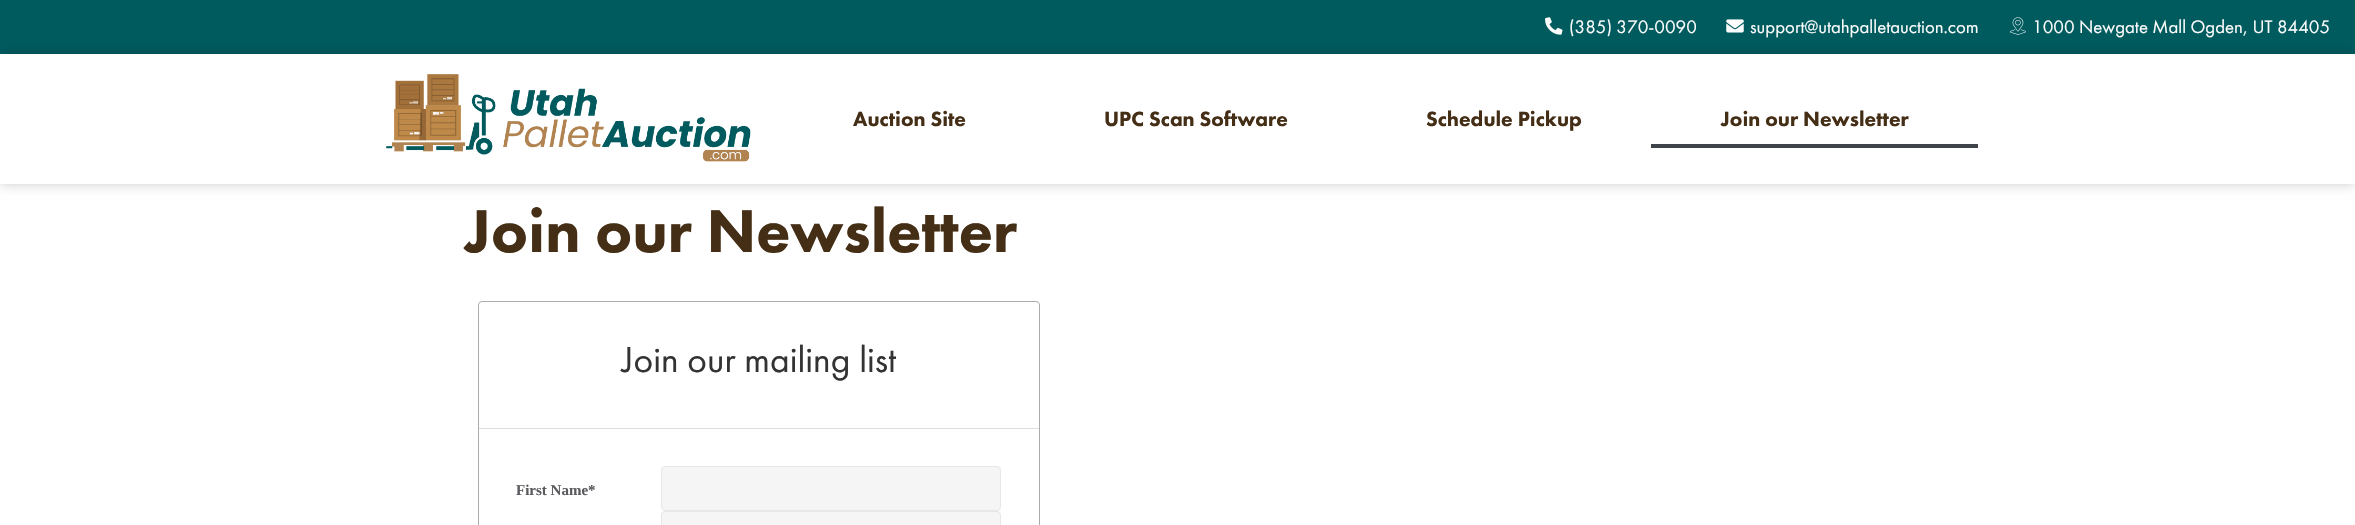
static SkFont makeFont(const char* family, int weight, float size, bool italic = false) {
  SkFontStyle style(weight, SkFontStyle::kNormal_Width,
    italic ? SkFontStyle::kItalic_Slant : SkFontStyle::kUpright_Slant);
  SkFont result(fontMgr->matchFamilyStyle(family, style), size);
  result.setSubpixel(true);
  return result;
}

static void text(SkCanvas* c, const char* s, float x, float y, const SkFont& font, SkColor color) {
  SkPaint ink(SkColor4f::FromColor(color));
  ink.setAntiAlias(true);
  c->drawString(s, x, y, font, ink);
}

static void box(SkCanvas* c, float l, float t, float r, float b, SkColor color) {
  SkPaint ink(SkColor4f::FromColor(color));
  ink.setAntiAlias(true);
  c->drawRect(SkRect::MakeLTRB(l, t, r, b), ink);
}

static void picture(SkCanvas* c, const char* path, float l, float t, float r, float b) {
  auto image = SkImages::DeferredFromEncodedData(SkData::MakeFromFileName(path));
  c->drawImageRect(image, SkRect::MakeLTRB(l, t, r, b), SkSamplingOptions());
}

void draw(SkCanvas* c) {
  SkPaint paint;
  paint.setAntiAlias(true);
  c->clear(0xffffffff);
  box(c, 0, 0, 2355, 54, 0xff005b5f);
  picture(c, "img_01.png", 1545, 17, 1563, 35);
  SkFont face1 = makeFont("Futura PT", 400, 18.75f);
  text(c, "(385) 370-0090", 1569, 33, face1, 0xfffcfcfc);
  picture(c, "img_02.png", 1726, 19, 1744, 33);
  text(c, "support@utahpalletauction.com", 1750, 33, face1, 0xfffcfcfc);
  picture(c, "img_03.png", 2010, 17, 2026, 35);
  text(c, "1000 Newgate Mall Ogden, UT 84405", 2032, 33, face1, 0xfffcfcfc);
  c->save();
  c->clipPath(SkPathBuilder(SkPathFillType::kEvenOdd).moveTo(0, 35).lineTo(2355, 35).lineTo(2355, 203).lineTo(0, 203).close().moveTo(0, 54).lineTo(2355, 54).lineTo(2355, 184).lineTo(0, 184).close().detach(), true);
  paint.setColor(0x33000000);
  paint.setMaskFilter(SkMaskFilter::MakeBlur(kNormal_SkBlurStyle, 6));
  c->drawRect(SkRect::MakeLTRB(0, 54, 2355, 184), paint);
  paint.setMaskFilter(nullptr);
  c->restore();
  picture(c, "img_04.png", 386, 74, 751, 162);
  SkFont face2 = makeFont("Futura PT", 900, 21.25f);
  text(c, "Auction Site", 853, 126, face2, 0xff452e16);
  text(c, "UPC Scan Software", 1104, 126, face2, 0xff452e16);
  text(c, "Schedule Pickup", 1426, 126, face2, 0xff452e16);
  text(c, "Join our Newsletter", 1721, 126, face2, 0xff452e16);
  box(c, 1651, 144, 1978, 148, 0xff3f444b);
  SkFont face3 = makeFont("Futura PT", 900, 62.5f);
  text(c, "Join our Newsletter", 465, 252, face3, 0xff452e16);
  paint.setStyle(SkPaint::kStroke_Style);
  paint.setStrokeWidth(1);
  paint.setColor(0xffacacac);
  c->drawRoundRect(SkRect::MakeLTRB(478.5f, 301.5f, 1039.5f, 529.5f), 3.5f, 3.5f, paint);
  paint.setStyle(SkPaint::kFill_Style);
  paint.setColor(0xffffffff);
  c->drawPath(SkPathBuilder().moveTo(481.5f, 303).lineTo(1036.5f, 303).cubicTo(1038, 303, 1039, 304, 1039, 305.5f).lineTo(1039, 429).lineTo(479, 429).lineTo(479, 305.5f).cubicTo(479, 304, 480, 303, 481.5f, 303).close().detach(), paint);
  box(c, 479, 428, 1039, 429, 0xffdddddd);
  SkFont face4 = makeFont("Futura PT", 400, 37.5f);
  text(c, "Join our mailing list", 622, 372, face4, 0xff333333);
  SkFont face5 = makeFont("Liberation Serif", 700, 15);
  text(c, "First Name*", 516, 495, face5, 0xff5a5a5e);
  paint.setColor(0xfff5f5f5);
  c->drawRoundRect(SkRect::MakeLTRB(661.5f, 466.5f, 1000.5f, 510.5f), 3.5f, 3.5f, paint);
  paint.setStyle(SkPaint::kStroke_Style);
  paint.setColor(0xffe7e7e7);
  c->drawRoundRect(SkRect::MakeLTRB(661.5f, 466.5f, 1000.5f, 510.5f), 3.5f, 3.5f, paint);
  paint.setStyle(SkPaint::kFill_Style);
  paint.setColor(0xfff5f5f5);
  c->drawRoundRect(SkRect::MakeLTRB(661.5f, 511.5f, 1000.5f, 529.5f), 3.5f, 3.5f, paint);
  paint.setStyle(SkPaint::kStroke_Style);
  paint.setColor(0xffe7e7e7);
  c->drawRoundRect(SkRect::MakeLTRB(661.5f, 511.5f, 1000.5f, 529.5f), 3.5f, 3.5f, paint);
}
